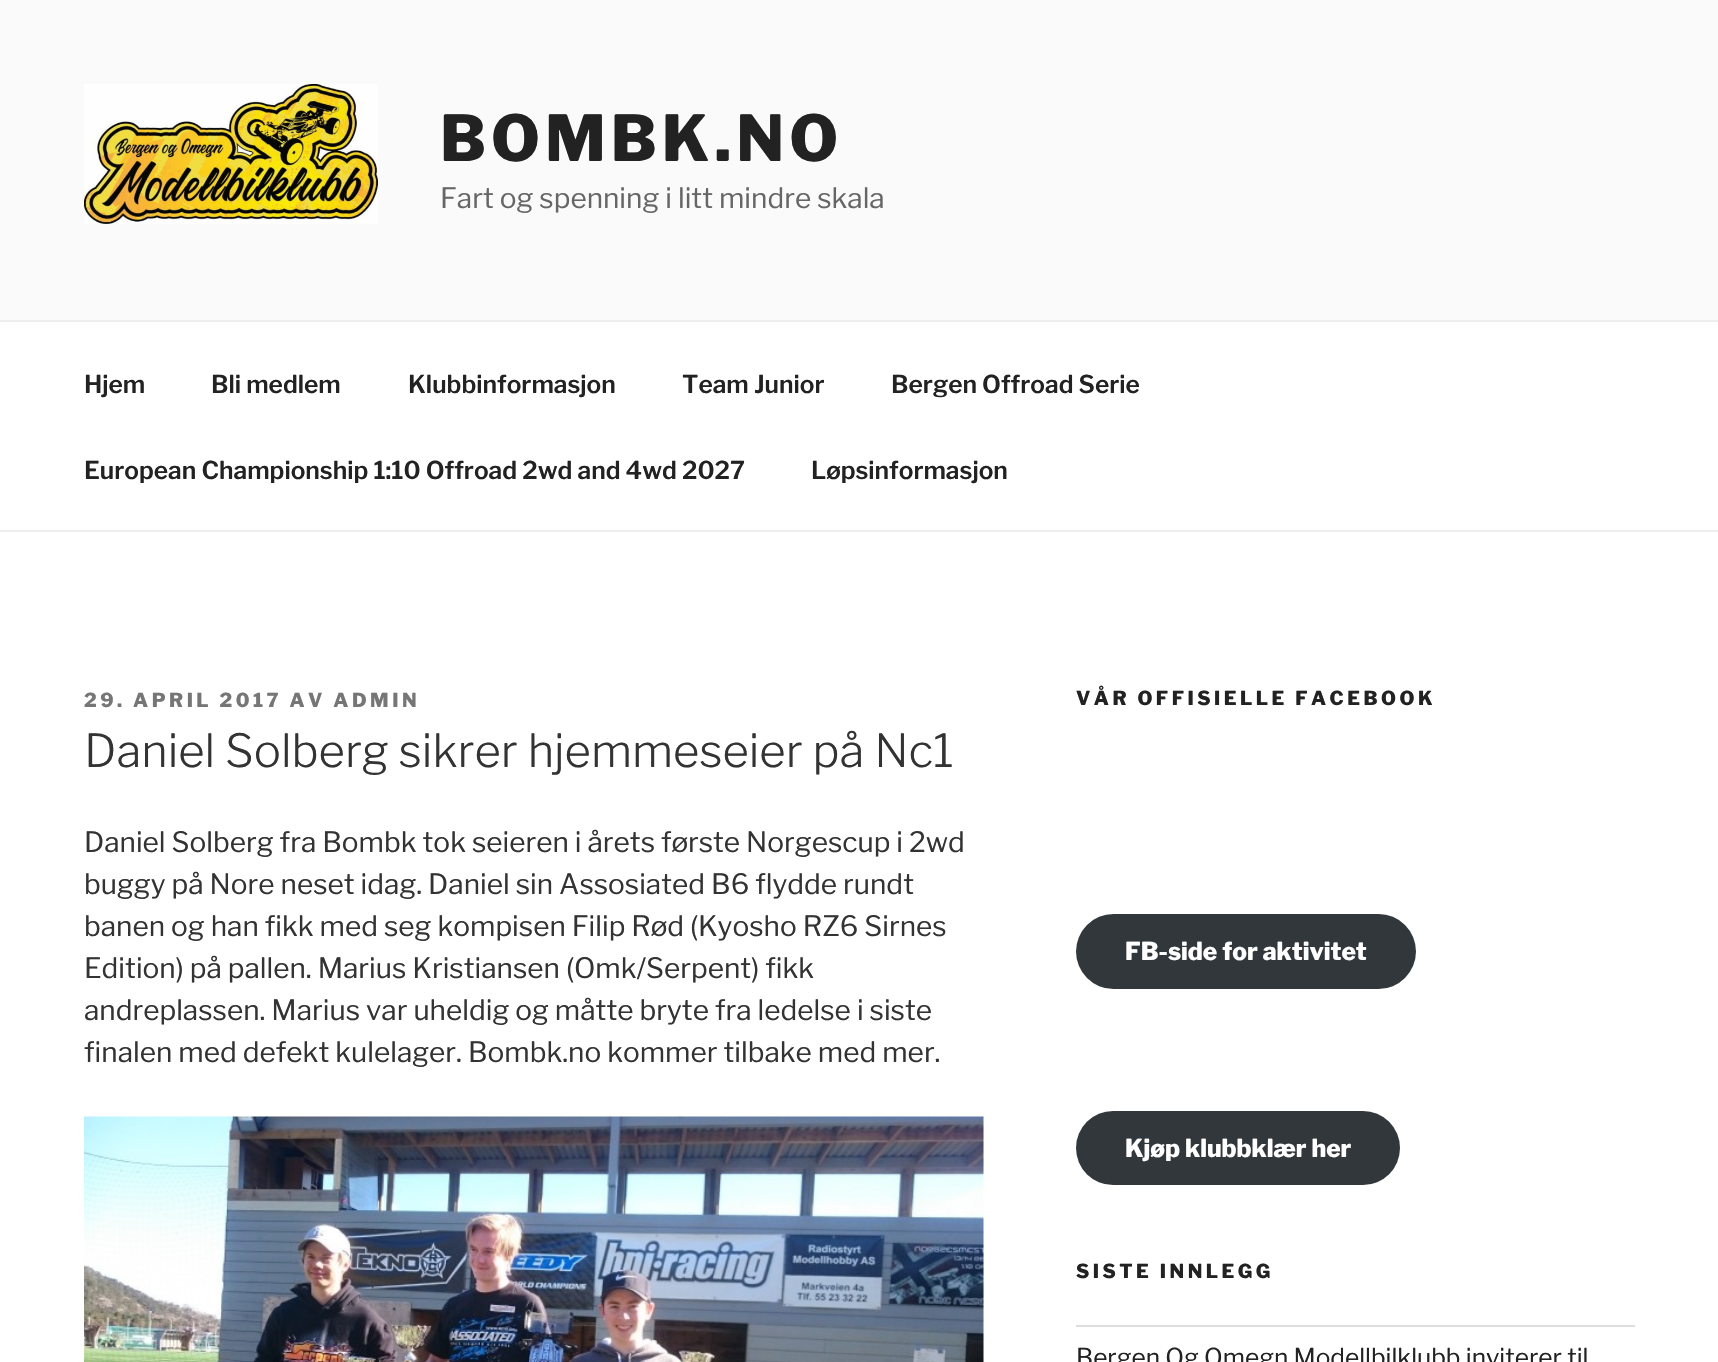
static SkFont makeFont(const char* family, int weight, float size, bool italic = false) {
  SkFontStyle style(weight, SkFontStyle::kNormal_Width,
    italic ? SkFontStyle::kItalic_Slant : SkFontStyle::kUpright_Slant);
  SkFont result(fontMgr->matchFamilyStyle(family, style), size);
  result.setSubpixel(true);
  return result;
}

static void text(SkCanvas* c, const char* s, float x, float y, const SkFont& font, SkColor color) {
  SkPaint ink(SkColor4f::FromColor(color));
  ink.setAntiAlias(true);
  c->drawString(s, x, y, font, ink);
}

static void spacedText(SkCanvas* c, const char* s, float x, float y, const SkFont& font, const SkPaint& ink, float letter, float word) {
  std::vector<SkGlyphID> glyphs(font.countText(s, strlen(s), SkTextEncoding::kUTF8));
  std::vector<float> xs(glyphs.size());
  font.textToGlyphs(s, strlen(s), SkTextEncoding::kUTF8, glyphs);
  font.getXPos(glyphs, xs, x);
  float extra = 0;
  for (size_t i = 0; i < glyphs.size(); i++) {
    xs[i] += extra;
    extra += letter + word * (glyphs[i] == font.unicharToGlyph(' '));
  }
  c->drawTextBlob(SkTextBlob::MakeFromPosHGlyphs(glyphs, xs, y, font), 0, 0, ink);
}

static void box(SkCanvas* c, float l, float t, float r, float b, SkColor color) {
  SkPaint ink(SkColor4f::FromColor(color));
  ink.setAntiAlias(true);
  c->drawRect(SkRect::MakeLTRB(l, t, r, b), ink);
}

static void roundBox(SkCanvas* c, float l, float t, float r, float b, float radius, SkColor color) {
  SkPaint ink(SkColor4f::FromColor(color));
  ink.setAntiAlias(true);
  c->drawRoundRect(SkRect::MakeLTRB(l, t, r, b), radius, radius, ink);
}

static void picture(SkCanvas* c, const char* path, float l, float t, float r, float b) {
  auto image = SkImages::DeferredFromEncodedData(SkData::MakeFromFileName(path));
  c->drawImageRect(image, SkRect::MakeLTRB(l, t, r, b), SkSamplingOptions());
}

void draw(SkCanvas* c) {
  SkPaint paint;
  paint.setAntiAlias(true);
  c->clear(0xffffffff);
  box(c, 0, 0, 1718, 320, 0xfffafafa);
  picture(c, "img_01.png", 84, 84, 378, 224);
  SkFont face1 = makeFont("Libre Franklin", 800, 63);
  paint.setColor(0xff222222);
  spacedText(c, "BOMBK.NO", 440, 161, face1, paint, 5, 0);
  SkFont face2 = makeFont("Libre Franklin", 400, 28);
  text(c, "Fart og spenning i litt mindre skala", 440, 208, face2, 0xff666666);
  box(c, 0, 320, 1718, 322, 0xffeeeeee);
  box(c, 0, 530, 1718, 532, 0xffeeeeee);
  SkFont face3 = makeFont("Libre Franklin", 600, 24.5f);
  text(c, "Hjem", 84, 393, face3, 0xff222222);
  text(c, "Bli medlem", 211, 393, face3, 0xff222222);
  text(c, "Klubbinformasjon", 408, 393, face3, 0xff222222);
  text(c, "Team Junior", 682, 393, face3, 0xff222222);
  text(c, "Bergen Offroad Serie", 891, 393, face3, 0xff222222);
  text(c, "European Championship 1:10 Offroad 2wd and 4wd 2027", 84, 479, face3, 0xff222222);
  text(c, "Løpsinformasjon", 811, 479, face3, 0xff222222);
  SkFont face4 = makeFont("Libre Franklin", 800, 19.25f);
  paint.setColor(0xff767676);
  spacedText(c, "29. APRIL 2017 AV ADMIN", 84, 707, face4, paint, 3.5f, 0);
  SkFont face5 = makeFont("Libre Franklin", 300, 45.5f);
  text(c, "Daniel Solberg sikrer hjemmeseier på Nc1", 84, 767, face5, 0xff333333);
  text(c, "Daniel Solberg fra Bombk tok seieren i årets første Norgescup i 2wd", 84, 852, face2, 0xff333333);
  text(c, "buggy på Nore neset idag. Daniel sin Assosiated B6 flydde rundt", 84, 894, face2, 0xff333333);
  text(c, "banen og han fikk med seg kompisen Filip Rød (Kyosho RZ6 Sirnes", 84, 936, face2, 0xff333333);
  text(c, "Edition) på pallen. Marius Kristiansen (Omk/Serpent) fikk", 84, 978, face2, 0xff333333);
  text(c, "andreplassen. Marius var uheldig og måtte bryte fra ledelse i siste", 84, 1020, face2, 0xff333333);
  text(c, "finalen med defekt kulelager. Bombk.no kommer tilbake med mer.", 84, 1062, face2, 0xff333333);
  picture(c, "img_02.png", 84, 1116, 984, 1362);
  paint.setColor(0xff222222);
  spacedText(c, "VÅR OFFISIELLE FACEBOOK", 1076, 705, face4, paint, 3.5f, 0);
  roundBox(c, 1076, 914, 1416, 989, 37.5f, 0xff32373c);
  SkFont face6 = makeFont("Libre Franklin", 800, 24.5f);
  text(c, "FB-side for aktivitet", 1125, 960, face6, 0xffffffff);
  roundBox(c, 1076, 1111, 1400, 1185, 37, 0xff32373c);
  text(c, "Kjøp klubbklær her", 1125, 1157, face6, 0xffffffff);
  spacedText(c, "SISTE INNLEGG", 1076, 1278, face4, paint, 3.5f, 0);
  box(c, 1076, 1325, 1635, 1327, 0xffdddddd);
  SkFont face7 = makeFont("Libre Franklin", 400, 24.5f);
  text(c, "Bergen Og Omegn Modellbilklubb inviterer til", 1076, 1366, face7, 0xff222222);
}
